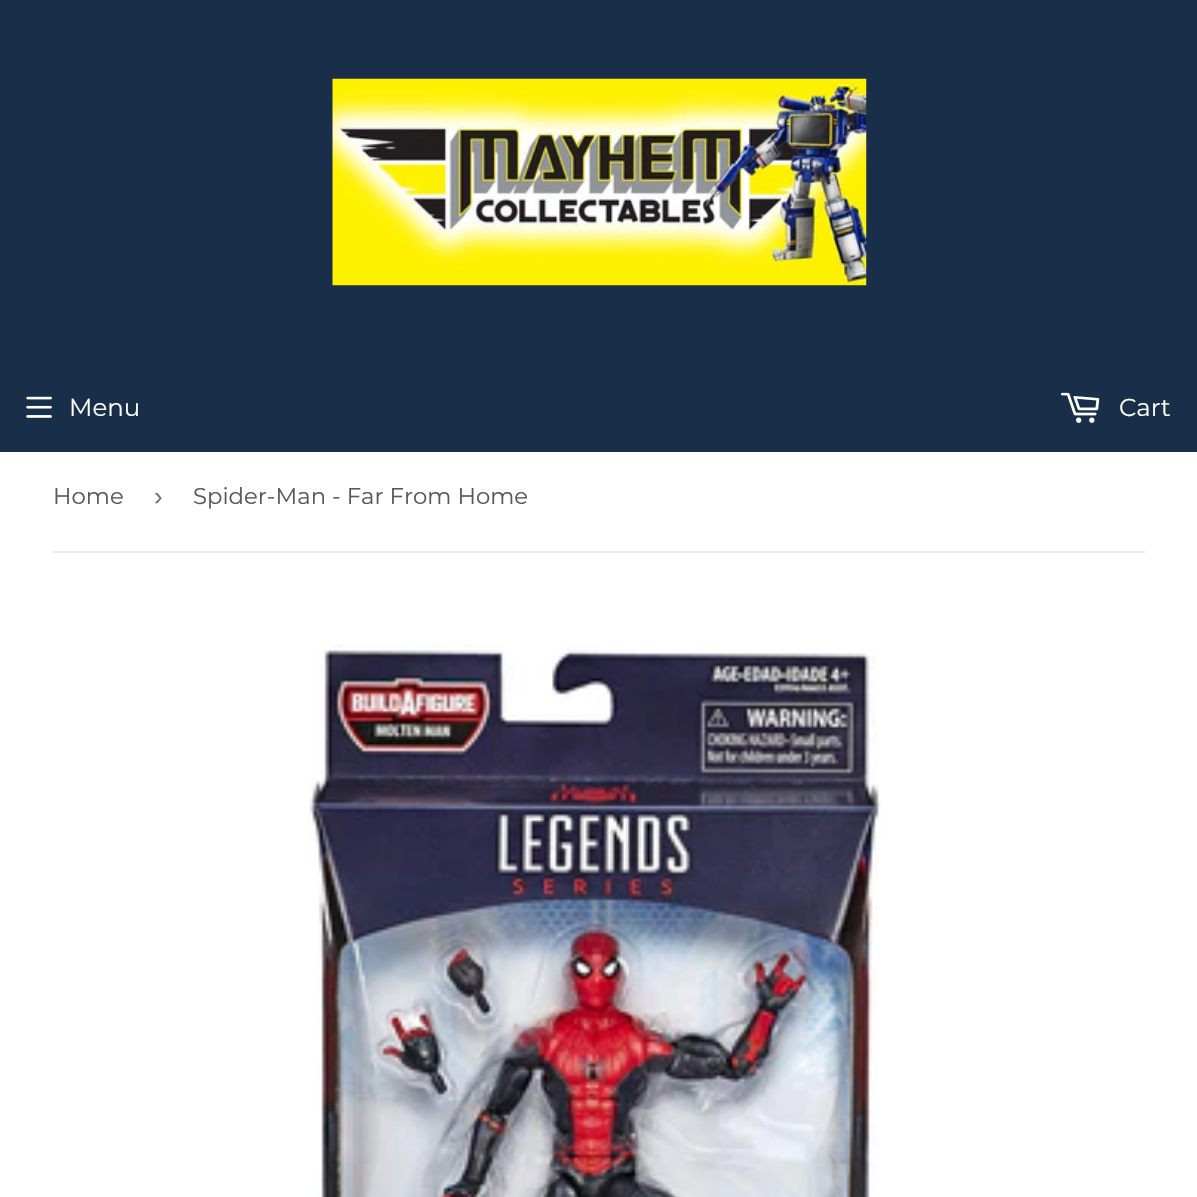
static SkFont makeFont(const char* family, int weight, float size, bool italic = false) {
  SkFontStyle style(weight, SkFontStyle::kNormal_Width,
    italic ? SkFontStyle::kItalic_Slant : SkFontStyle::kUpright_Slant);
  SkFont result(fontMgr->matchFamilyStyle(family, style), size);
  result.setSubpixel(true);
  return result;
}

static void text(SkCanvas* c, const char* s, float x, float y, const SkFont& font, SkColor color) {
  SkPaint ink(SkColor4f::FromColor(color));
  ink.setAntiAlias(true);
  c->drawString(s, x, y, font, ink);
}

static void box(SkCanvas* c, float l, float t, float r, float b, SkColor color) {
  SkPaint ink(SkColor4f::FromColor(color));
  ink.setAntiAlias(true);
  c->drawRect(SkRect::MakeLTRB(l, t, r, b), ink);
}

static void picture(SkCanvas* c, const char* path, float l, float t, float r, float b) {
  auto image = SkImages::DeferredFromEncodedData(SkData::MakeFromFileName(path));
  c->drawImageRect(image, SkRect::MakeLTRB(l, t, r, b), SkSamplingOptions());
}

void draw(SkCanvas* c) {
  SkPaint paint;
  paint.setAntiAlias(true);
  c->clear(0xffffffff);
  box(c, 0, 0, 1197, 452, 0xff182e49);
  picture(c, "img_01.png", 332, 78, 867, 286);
  picture(c, "img_02.png", 26, 396, 52, 418);
  SkFont face1 = makeFont("Montserrat", 400, 24.5f);
  text(c, "Menu", 69, 416, face1, 0xffffffff);
  picture(c, "img_03.png", 1060, 392, 1100, 423);
  text(c, "Cart", 1119, 416, face1, 0xffffffff);
  box(c, 53, 551, 1145, 553, 0xffececec);
  SkFont face2 = makeFont("Montserrat", 400, 22.75f);
  text(c, "Home", 53, 504, face2, 0xff585858);
  SkFont face3 = makeFont("Liberation Sans", 400, 26);
  text(c, "›", 154, 505, face3, 0xff767676);
  text(c, "Spider-Man - Far From Home", 193, 504, face2, 0xff585858);
  picture(c, "img_04.png", 307, 644, 882, 1197);
}
